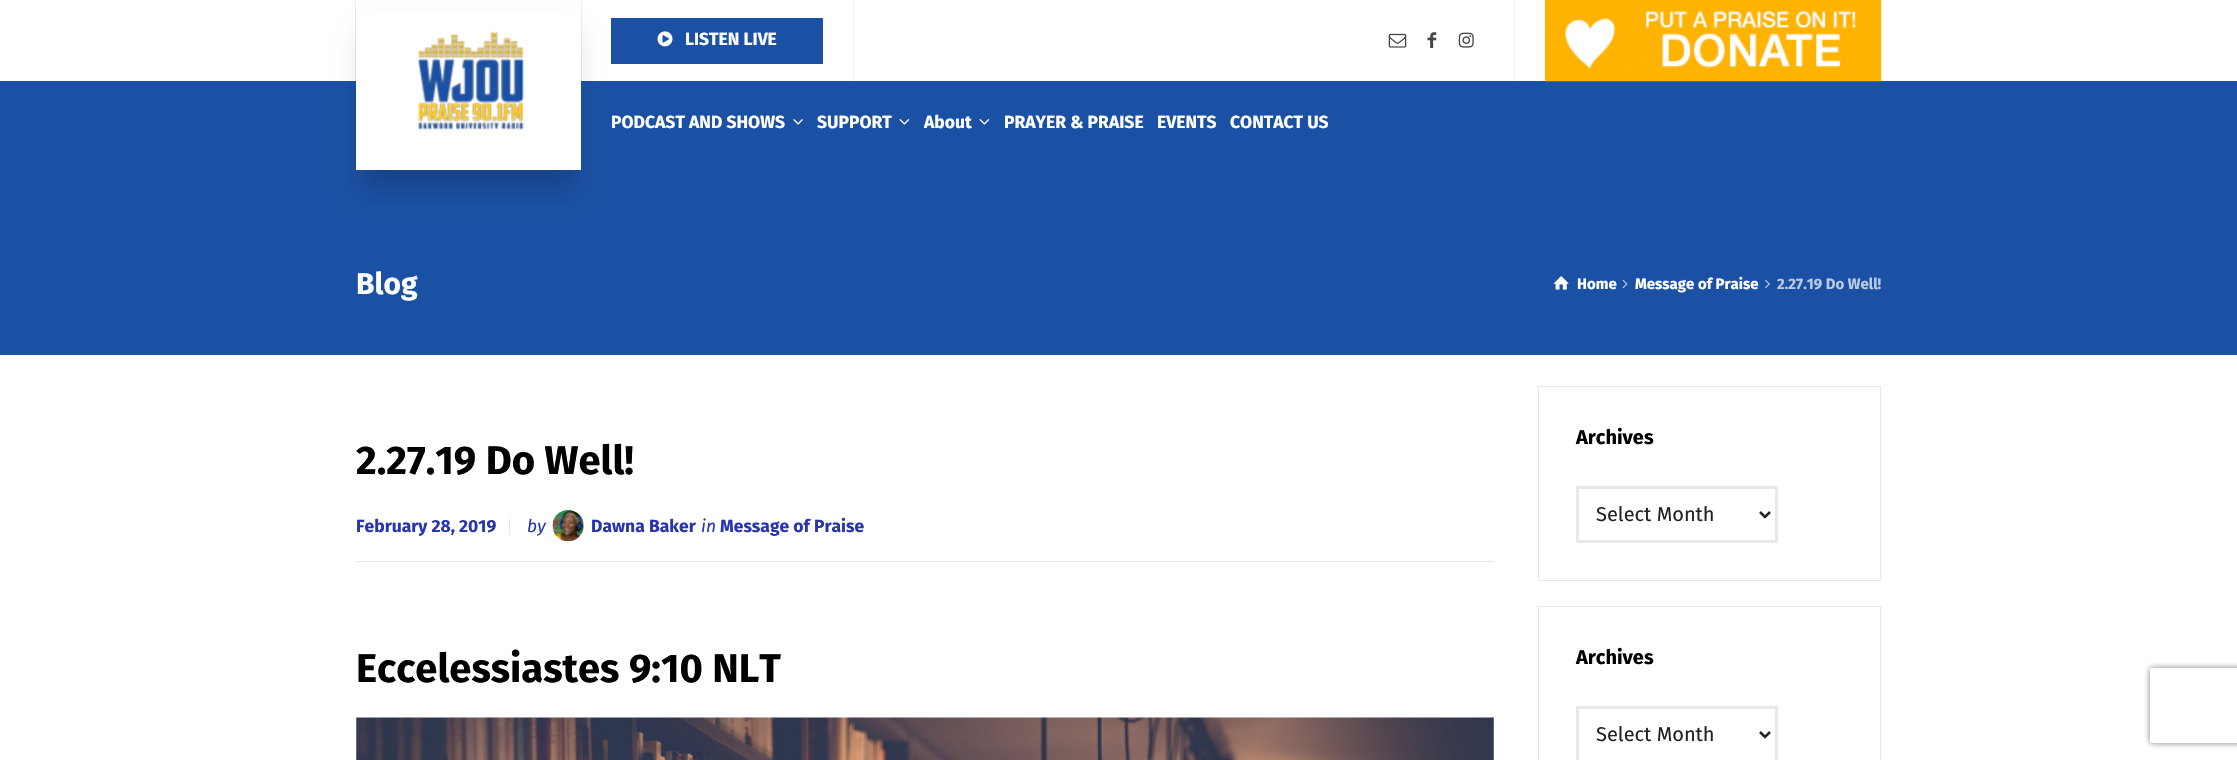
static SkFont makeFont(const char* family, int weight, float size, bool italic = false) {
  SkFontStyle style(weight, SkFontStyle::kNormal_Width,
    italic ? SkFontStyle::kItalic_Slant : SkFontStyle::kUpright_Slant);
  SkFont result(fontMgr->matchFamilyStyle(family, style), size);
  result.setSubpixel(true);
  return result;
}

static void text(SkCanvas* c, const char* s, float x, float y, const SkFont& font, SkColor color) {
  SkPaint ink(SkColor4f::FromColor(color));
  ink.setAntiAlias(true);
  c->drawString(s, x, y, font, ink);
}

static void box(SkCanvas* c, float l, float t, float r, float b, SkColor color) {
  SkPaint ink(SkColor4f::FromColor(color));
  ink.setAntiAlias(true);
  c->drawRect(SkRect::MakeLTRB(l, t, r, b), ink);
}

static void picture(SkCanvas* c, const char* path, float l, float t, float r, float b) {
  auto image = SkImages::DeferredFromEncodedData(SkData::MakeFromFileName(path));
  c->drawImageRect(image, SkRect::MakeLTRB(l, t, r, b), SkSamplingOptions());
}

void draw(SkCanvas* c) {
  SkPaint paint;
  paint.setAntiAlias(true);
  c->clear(0xffffffff);
  box(c, 0, 81, 2237, 355, 0xff1b51a4);
  paint.setColor(0x2b000000);
  paint.setMaskFilter(SkMaskFilter::MakeBlur(kNormal_SkBlurStyle, 12));
  c->drawRect(SkRect::MakeLTRB(363, 31, 575, 189), paint);
  paint.setMaskFilter(nullptr);
  box(c, 356, 12, 581, 170, 0xffffffff);
  box(c, 355, 0, 356, 81, 0x12000000);
  picture(c, "img_01.png", 418, 31, 525, 130);
  box(c, 581, 0, 582, 81, 0x12000000);
  box(c, 853, 0, 854, 81, 0xffededed);
  box(c, 611, 18, 823, 64, 0xff1b51a4);
  picture(c, "img_02.png", 657, 31, 673, 47);
  SkFont face1 = makeFont("Fira Sans", 700, 17.5f);
  text(c, "LISTEN LIVE", 685, 45, face1, 0xffffffff);
  box(c, 1514, 0, 1515, 81, 0xffededed);
  picture(c, "img_03.png", 1388, 33, 1407, 48);
  picture(c, "img_04.png", 1427, 32, 1437, 48);
  picture(c, "img_05.png", 1458, 32, 1474, 48);
  picture(c, "img_06.png", 1545, 0, 1882, 82);
  text(c, "PODCAST AND SHOWS", 611, 128, face1, 0xffffffff);
  picture(c, "img_07.png", 793, 119, 803, 125);
  text(c, "SUPPORT", 817, 128, face1, 0xffffffff);
  picture(c, "img_08.png", 899, 119, 910, 125);
  text(c, "About", 924, 128, face1, 0xffffffff);
  picture(c, "img_08.png", 979, 119, 990, 125);
  text(c, "PRAYER & PRAISE", 1004, 128, face1, 0xffffffff);
  text(c, "EVENTS", 1157, 128, face1, 0xffffffff);
  text(c, "CONTACT US", 1230, 128, face1, 0xffffffff);
  SkFont face2 = makeFont("Fira Sans", 700, 30);
  text(c, "Blog", 356, 294, face2, 0xffffffff);
  picture(c, "img_09.png", 1553, 276, 1569, 290);
  SkFont face3 = makeFont("Fira Sans", 700, 15);
  text(c, "Home", 1577, 289, face3, 0xffffffff);
  picture(c, "img_10.png", 1622, 279, 1628, 289);
  text(c, "Message of Praise", 1635, 289, face3, 0xffffffff);
  picture(c, "img_11.png", 1765, 279, 1770, 289);
  text(c, "2.27.19 Do Well!", 1777, 289, face3, 0xffbbcbe4);
  SkFont face4 = makeFont("Fira Sans", 700, 40);
  text(c, "2.27.19 Do Well!", 356, 474, face4, 0xff000000);
  box(c, 356, 561, 1494, 562, 0xffe8e8e8);
  box(c, 509, 518, 510, 535, 0xffe8e8e8);
  text(c, "February 28, 2019", 356, 532, face1, 0xff2935b0);
  SkFont face5 = makeFont("Fira Sans", 400, 17.5f, true);
  text(c, "by", 527, 532, face5, 0xff2935b0);
  picture(c, "img_12.png", 552, 510, 584, 542);
  text(c, "Dawna Baker", 591, 532, face1, 0xff2935b0);
  text(c, "in", 701, 532, face5, 0xff2935b0);
  text(c, "Message of Praise", 720, 532, face1, 0xff2935b0);
  text(c, "Eccelessiastes 9:10 NLT", 356, 682, face4, 0xff000000);
  picture(c, "img_13.png", 356, 717, 1494, 760);
  paint.setStyle(SkPaint::kStroke_Style);
  paint.setStrokeWidth(1);
  paint.setColor(0xffe8e8e8);
  c->drawRect(SkRect::MakeLTRB(1538.5f, 386.5f, 1880.5f, 580.5f), paint);
  SkFont face6 = makeFont("Fira Sans", 700, 20);
  text(c, "Archives", 1576, 444, face6, 0xff000000);
  paint.setStrokeWidth(3);
  c->drawRect(SkRect::MakeLTRB(1577.5f, 487.5f, 1776.5f, 541.5f), paint);
  paint.setStrokeWidth(2.5f);
  paint.setColor(0xff232222);
  c->drawPath(SkPathBuilder().moveTo(1760, 512).lineTo(1765, 517).lineTo(1770, 512).detach(), paint);
  SkFont face7 = makeFont("Fira Sans", 400, 20);
  text(c, "Select Month", 1596, 521, face7, 0xff232222);
  paint.setStrokeWidth(1);
  paint.setColor(0xffe8e8e8);
  c->drawRect(SkRect::MakeLTRB(1538.5f, 606.5f, 1880.5f, 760.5f), paint);
  text(c, "Archives", 1576, 664, face6, 0xff000000);
  paint.setStrokeWidth(3);
  c->drawRect(SkRect::MakeLTRB(1577.5f, 707.5f, 1776.5f, 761.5f), paint);
  paint.setStrokeWidth(2.5f);
  paint.setColor(0xff232222);
  c->drawPath(SkPathBuilder().moveTo(1760, 732).lineTo(1765, 737).lineTo(1770, 732).detach(), paint);
  text(c, "Select Month", 1596, 741, face7, 0xff232222);
  c->save();
  c->clipPath(SkPathBuilder(SkPathFillType::kEvenOdd).moveTo(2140, 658).lineTo(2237, 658).lineTo(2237, 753).lineTo(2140, 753).close().moveTo(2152.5f, 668).lineTo(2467.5f, 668).cubicTo(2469, 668, 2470, 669, 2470, 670.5f).lineTo(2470, 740.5f).cubicTo(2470, 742, 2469, 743, 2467.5f, 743).lineTo(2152.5f, 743).cubicTo(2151, 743, 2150, 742, 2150, 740.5f).lineTo(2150, 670.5f).cubicTo(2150, 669, 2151, 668, 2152.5f, 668).close().detach(), true);
  paint.setStyle(SkPaint::kFill_Style);
  paint.setColor(0xff808080);
  paint.setMaskFilter(SkMaskFilter::MakeBlur(kNormal_SkBlurStyle, 3));
  c->drawRoundRect(SkRect::MakeLTRB(2150, 668, 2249, 743), 2.5f, 2.5f, paint);
  paint.setMaskFilter(nullptr);
  c->restore();
}
